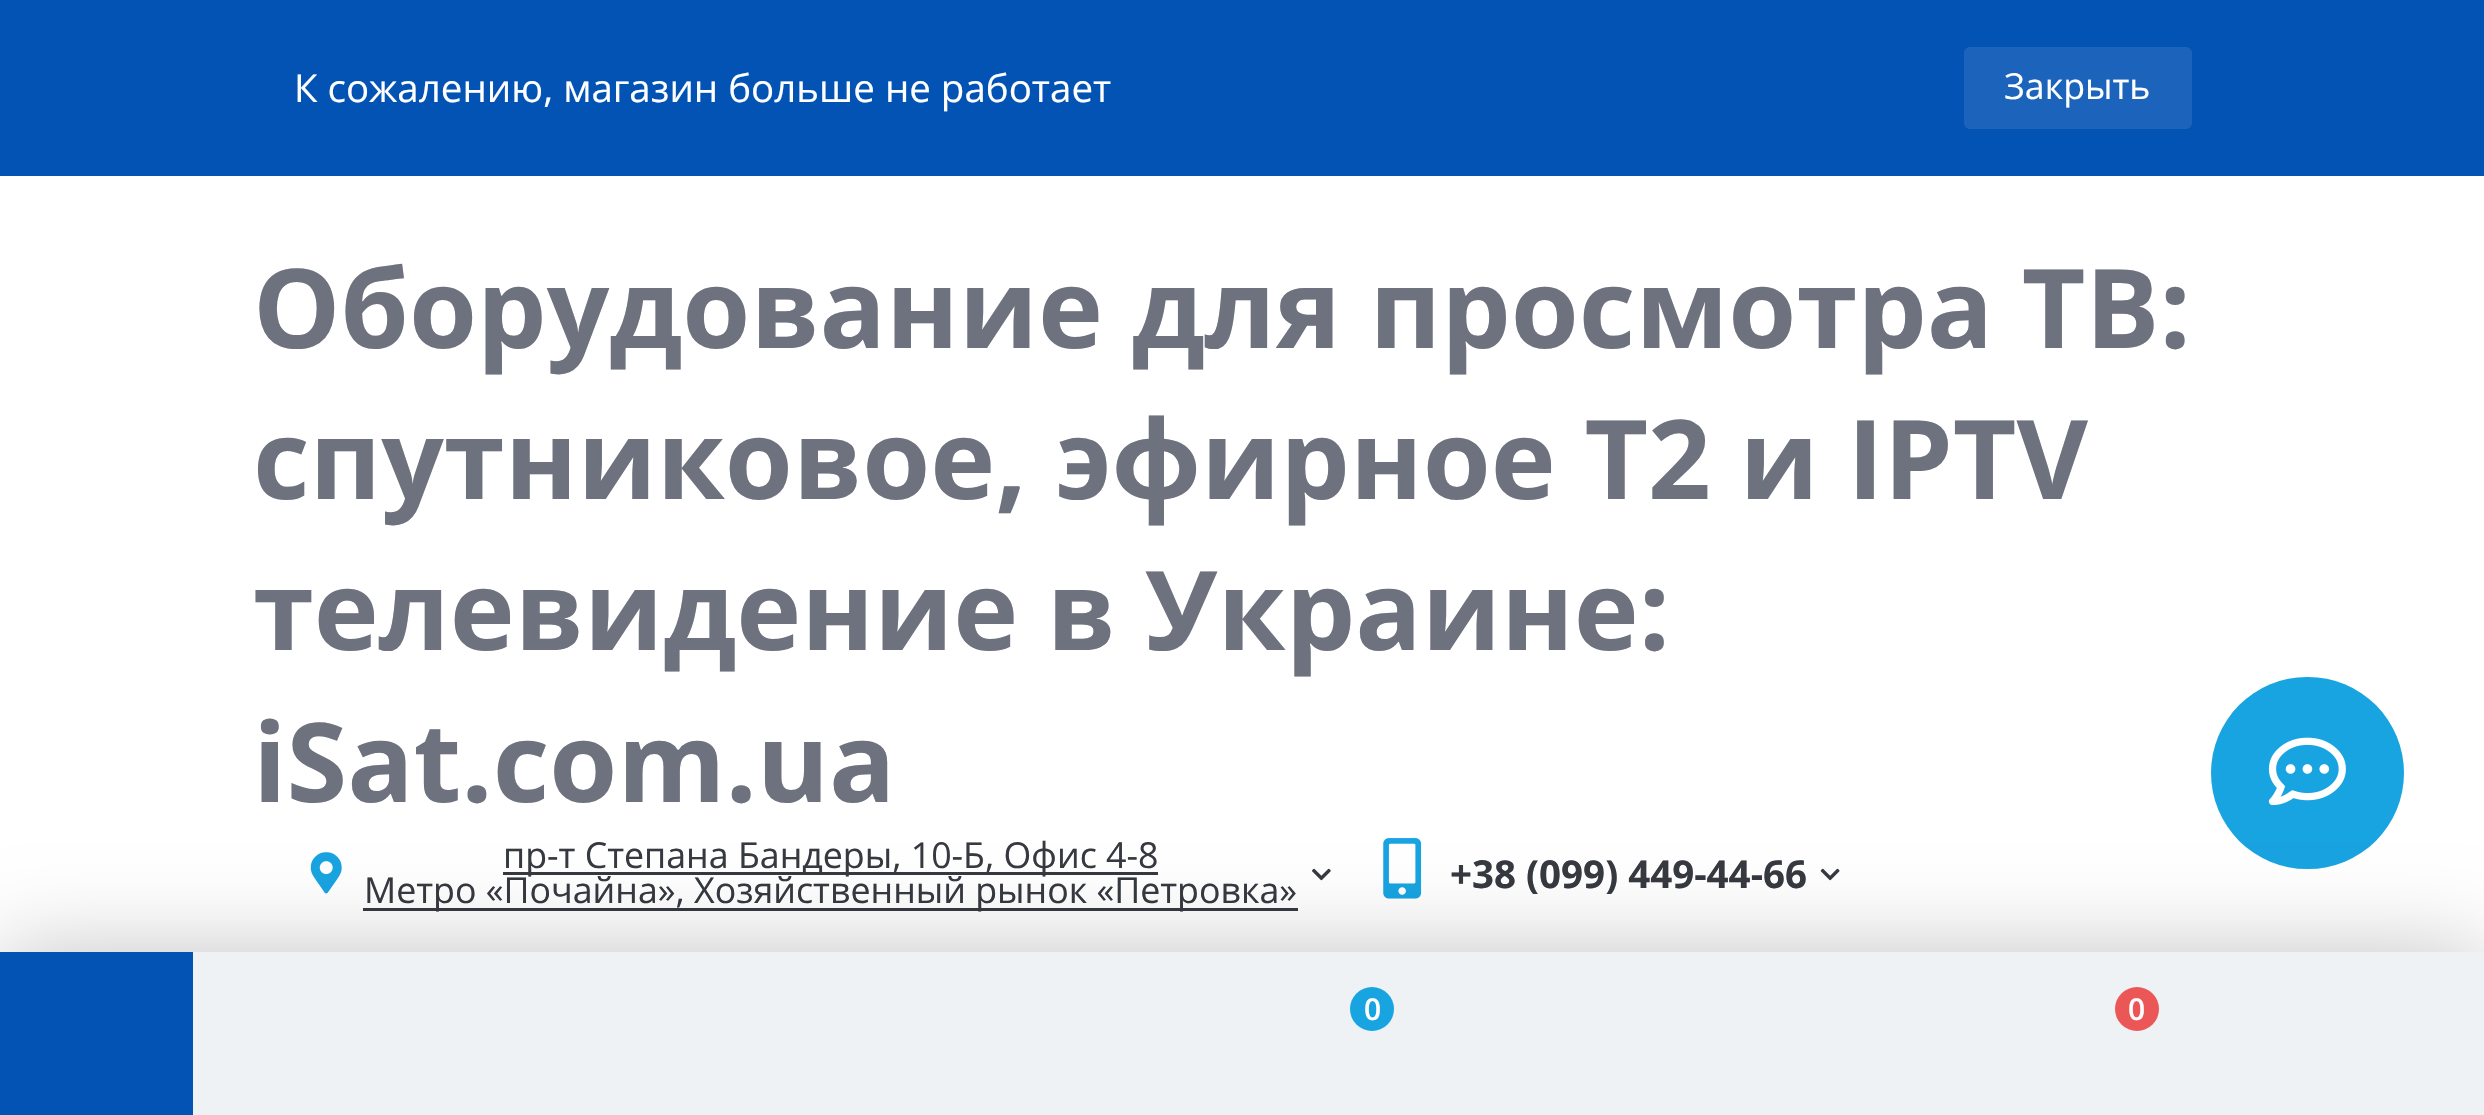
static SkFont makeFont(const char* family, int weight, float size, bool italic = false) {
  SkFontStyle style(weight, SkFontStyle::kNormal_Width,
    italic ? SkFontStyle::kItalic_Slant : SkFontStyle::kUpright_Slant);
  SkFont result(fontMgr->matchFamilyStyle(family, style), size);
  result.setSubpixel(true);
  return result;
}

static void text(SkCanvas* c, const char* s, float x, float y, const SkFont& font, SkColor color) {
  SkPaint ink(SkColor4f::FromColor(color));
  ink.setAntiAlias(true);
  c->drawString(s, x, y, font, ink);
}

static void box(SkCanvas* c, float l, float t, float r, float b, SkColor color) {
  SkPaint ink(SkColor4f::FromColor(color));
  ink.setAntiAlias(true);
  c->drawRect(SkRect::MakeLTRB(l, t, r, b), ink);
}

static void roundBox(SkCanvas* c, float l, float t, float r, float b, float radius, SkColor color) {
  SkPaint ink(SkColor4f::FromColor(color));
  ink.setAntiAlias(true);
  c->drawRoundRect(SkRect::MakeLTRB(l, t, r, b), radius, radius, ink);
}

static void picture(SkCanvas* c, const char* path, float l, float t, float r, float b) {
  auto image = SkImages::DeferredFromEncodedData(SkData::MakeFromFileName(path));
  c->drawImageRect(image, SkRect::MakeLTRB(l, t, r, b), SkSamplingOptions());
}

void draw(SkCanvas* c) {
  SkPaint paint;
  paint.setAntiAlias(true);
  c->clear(0xff0353b4);
  SkFont face1 = makeFont("Open Sans", 400, 38.5f);
  text(c, "К сожалению, магазин больше не работает", 294, 102, face1, 0xffffffff);
  roundBox(c, 1964, 47, 2192, 129, 6, 0xff1c64bb);
  SkFont face2 = makeFont("Open Sans", 400, 35.75f);
  text(c, "Закрыть", 2004, 99, face2, 0xffffffff);
  box(c, 0, 176, 2484, 952, 0xffffffff);
  SkFont face3 = makeFont("Open Sans", 700, 110);
  text(c, "Оборудование для просмотра ТВ:", 253, 348, face3, 0xff6e727e);
  text(c, "спутниковое, эфирное Т2 и IPTV", 253, 499, face3, 0xff6e727e);
  text(c, "телевидение в Украине:", 253, 650, face3, 0xff6e727e);
  text(c, "iSat.com.ua", 253, 802, face3, 0xff6e727e);
  picture(c, "img_01.png", 310, 852, 342, 894);
  box(c, 503, 872, 1158, 875, 0xff373941);
  text(c, "пр-т Степана Бандеры, 10-Б, Офис 4-8", 503, 868, face2, 0xff373941);
  box(c, 363, 908, 1298, 911, 0xff373941);
  text(c, "Метро «Почайна», Хозяйственный рынок «Петровка»", 364, 903, face2, 0xff373941);
  picture(c, "img_02.png", 1312, 868, 1331, 881);
  picture(c, "img_03.png", 1383, 838, 1422, 899);
  SkFont face4 = makeFont("Open Sans", 700, 38.5f);
  text(c, "+38 (099) 449-44-66", 1450, 888, face4, 0xff373941);
  picture(c, "img_04.png", 1820, 868, 1840, 881);
  roundBox(c, 2211, 677, 2404, 869, 96, 0xff18a4e1);
  picture(c, "img_05.png", 2268, 737, 2346, 806);
  paint.setColor(0x3b000000);
  paint.setMaskFilter(SkMaskFilter::MakeBlur(kNormal_SkBlurStyle, 45.5f));
  c->drawRect(SkRect::MakeLTRB(0, 952, 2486, 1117), paint);
  paint.setMaskFilter(nullptr);
  box(c, 193, 952, 2484, 1115, 0xffeef2f5);
  box(c, 0, 952, 193, 1115, 0xff0353b4);
  paint.setColor(0xff18a4e1);
  c->drawCircle(1372, 1009, 22, paint);
  SkFont face5 = makeFont("Open Sans", 600, 30);
  text(c, "0", 1364, 1020, face5, 0xffffffff);
  paint.setColor(0xffeb5757);
  c->drawCircle(2137, 1009, 22, paint);
  text(c, "0", 2128, 1020, face5, 0xffffffff);
}
